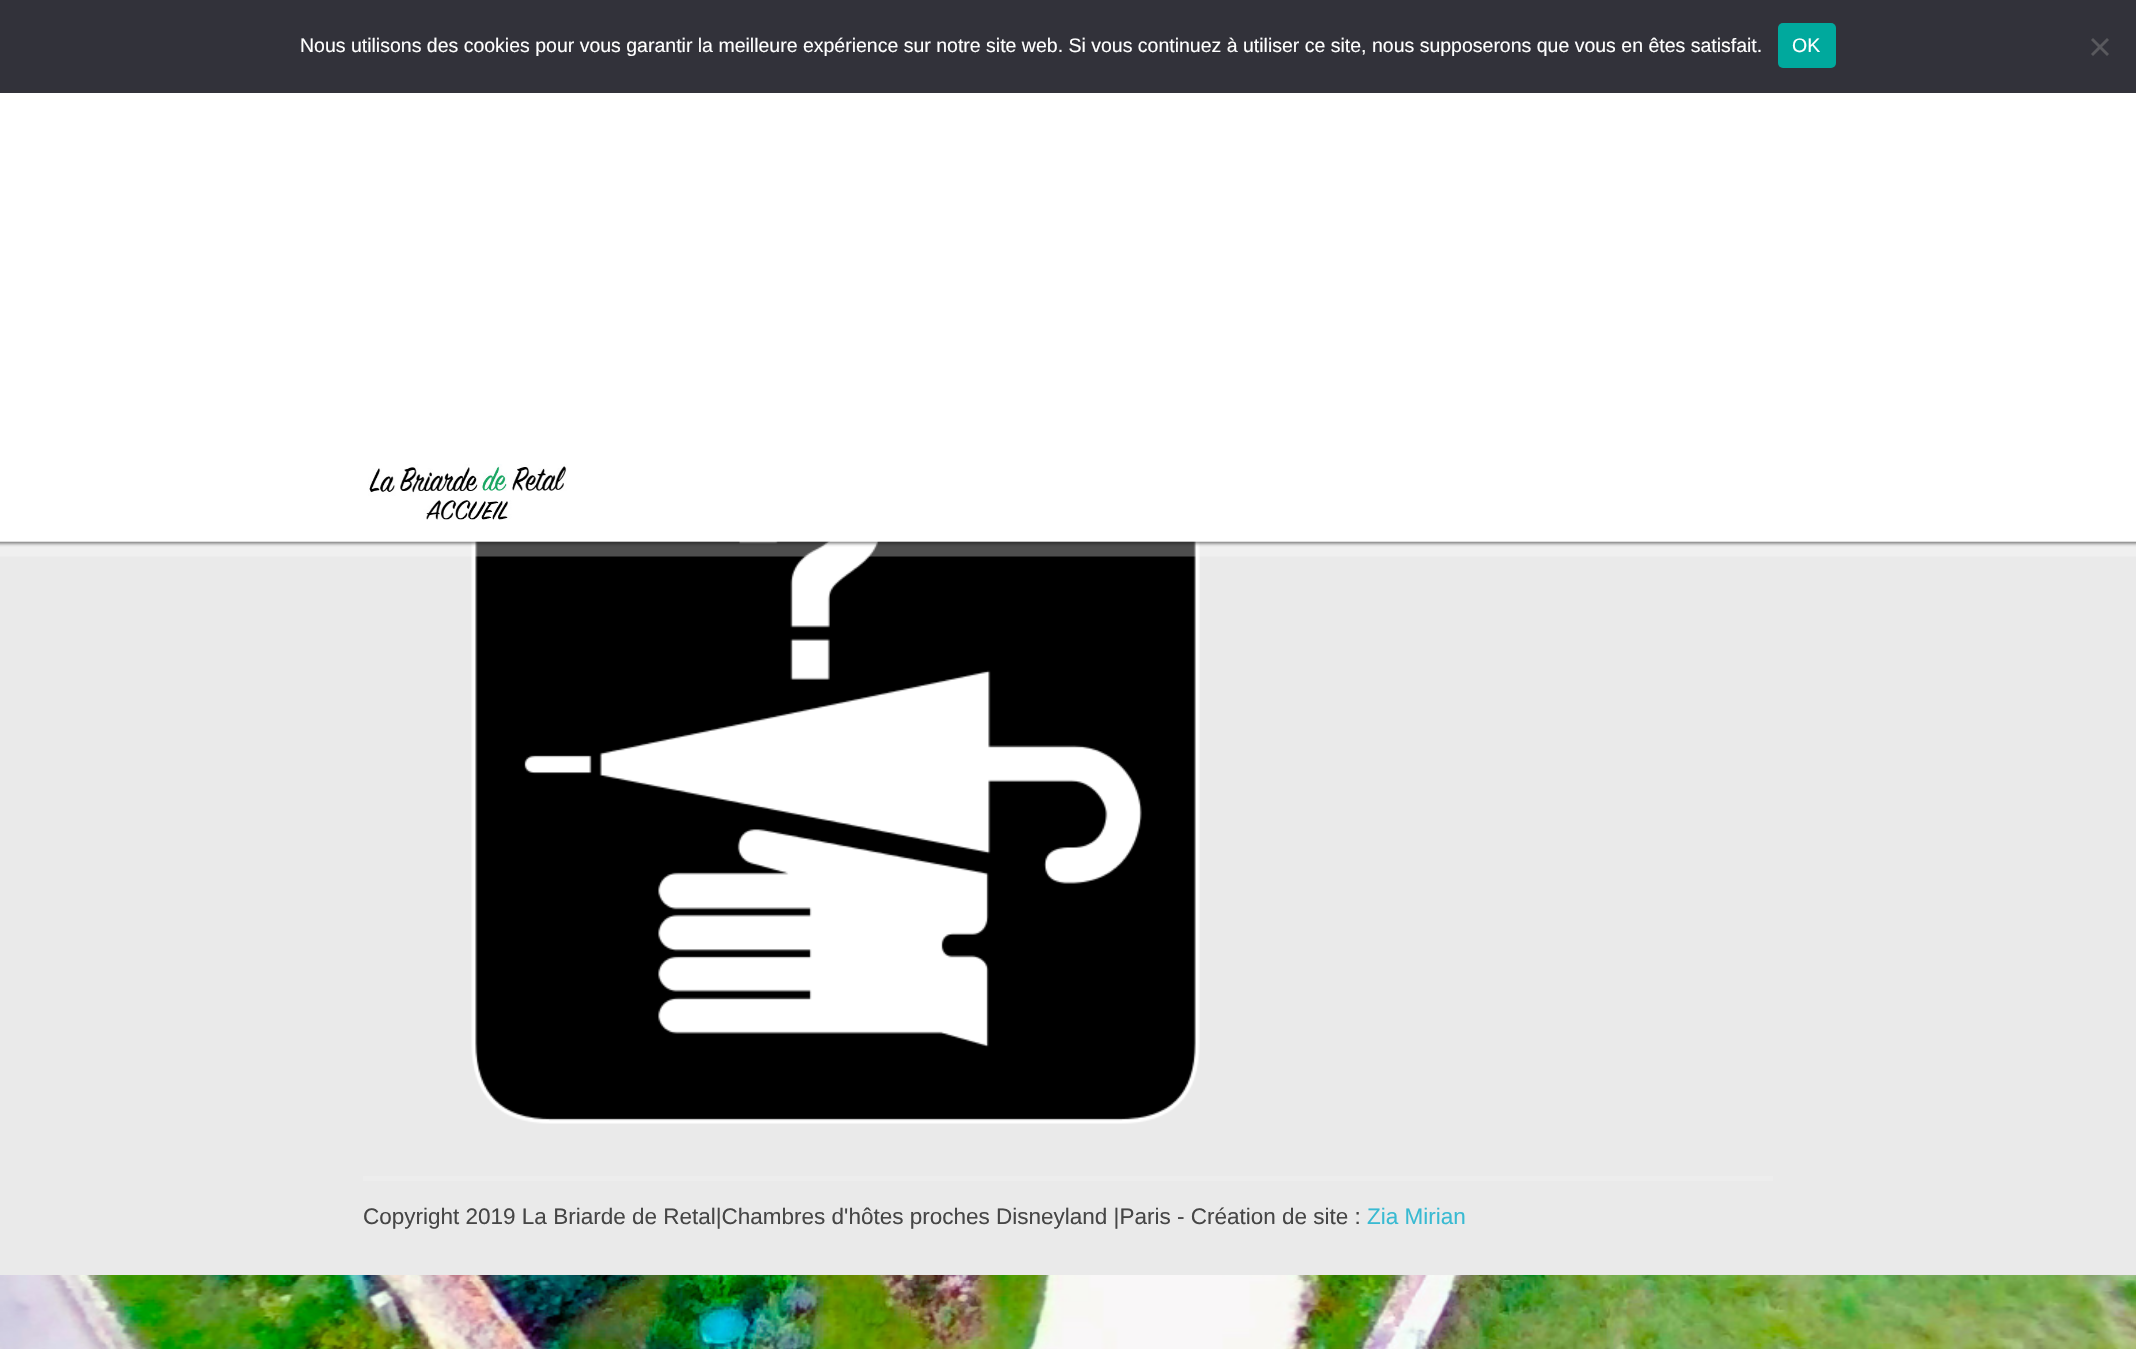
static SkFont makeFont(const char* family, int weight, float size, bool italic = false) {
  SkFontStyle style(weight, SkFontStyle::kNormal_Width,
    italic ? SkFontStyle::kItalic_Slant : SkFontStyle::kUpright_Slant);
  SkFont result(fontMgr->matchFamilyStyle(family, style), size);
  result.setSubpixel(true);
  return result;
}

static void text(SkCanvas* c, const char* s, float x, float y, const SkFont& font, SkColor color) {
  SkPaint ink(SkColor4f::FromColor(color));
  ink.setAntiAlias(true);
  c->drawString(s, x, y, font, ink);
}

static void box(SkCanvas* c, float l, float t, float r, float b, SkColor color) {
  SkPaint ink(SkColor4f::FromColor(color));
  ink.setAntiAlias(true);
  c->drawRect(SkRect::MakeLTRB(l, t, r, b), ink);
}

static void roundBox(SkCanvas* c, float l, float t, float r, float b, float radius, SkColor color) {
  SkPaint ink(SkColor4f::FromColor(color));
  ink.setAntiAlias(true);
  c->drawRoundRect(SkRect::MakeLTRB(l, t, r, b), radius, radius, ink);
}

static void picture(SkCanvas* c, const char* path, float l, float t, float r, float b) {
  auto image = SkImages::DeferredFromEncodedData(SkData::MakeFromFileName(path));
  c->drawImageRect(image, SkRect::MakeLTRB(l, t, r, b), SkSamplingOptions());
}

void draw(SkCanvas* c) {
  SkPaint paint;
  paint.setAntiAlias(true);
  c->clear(0xffffffff);
  box(c, 0, 0, 2136, 93, 0xff32323a);
  SkFont face1 = makeFont("Liberation Sans", 400, 19.5f);
  text(c, "Nous utilisons des cookies pour vous garantir la meilleure expérience sur notre site web. Si vous continuez à utiliser ce site, nous supposerons que vous en êtes satisfait.", 300, 52, face1, 0xffffffff);
  roundBox(c, 1778, 23, 1836, 68, 5, 0xff00a99d);
  text(c, "OK", 1792, 52, face1, 0xffffffff);
  paint.setColor(0xff59595d);
  c->drawPath(SkPathBuilder().moveTo(2107, 38).lineTo(2109, 40).lineTo(2093, 56).lineTo(2091, 54).close().detach(), paint);
  c->drawPath(SkPathBuilder().moveTo(2091, 40).lineTo(2093, 38).lineTo(2109, 54).lineTo(2107, 56).close().detach(), paint);
  box(c, 0, 541, 2136, 1275, 0xffeaeaea);
  picture(c, "img_03.png", 471, 541, 1200, 1124);
  picture(c, "img_01.png", 0, 93, 2136, 557);
  picture(c, "img_02.png", 368, 464, 567, 520);
  box(c, 363, 1176, 1773, 1181, 0xffededed);
  SkFont face2 = makeFont("Liberation Sans", 400, 22.5f);
  text(c, "Copyright 2019 La Briarde de Retal|Chambres d'hôtes proches Disneyland |Paris - Création de site :", 363, 1224, face2, 0xff464646);
  text(c, "Zia Mirian", 1367, 1224, face2, 0xff39bad2);
  picture(c, "img_04.png", 0, 1275, 2136, 1349);
}
